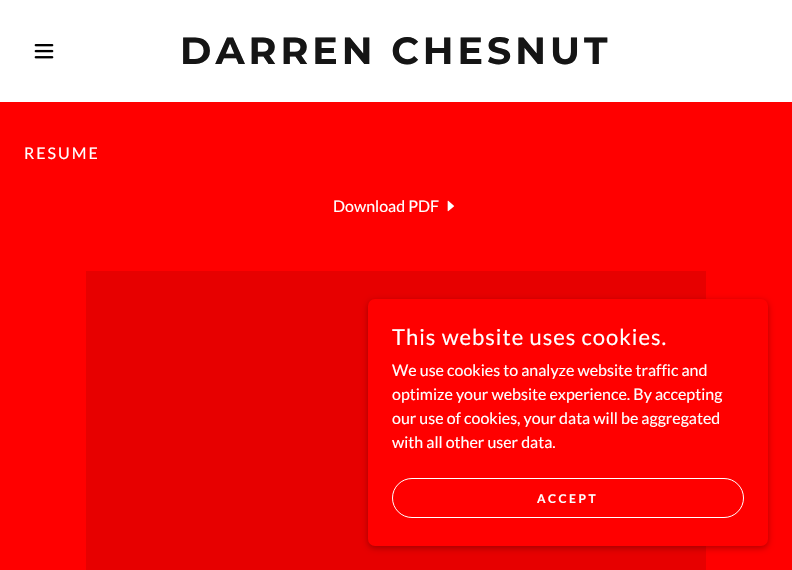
static SkFont makeFont(const char* family, int weight, float size, bool italic = false) {
  SkFontStyle style(weight, SkFontStyle::kNormal_Width,
    italic ? SkFontStyle::kItalic_Slant : SkFontStyle::kUpright_Slant);
  SkFont result(fontMgr->matchFamilyStyle(family, style), size);
  result.setSubpixel(true);
  return result;
}

static void text(SkCanvas* c, const char* s, float x, float y, const SkFont& font, SkColor color) {
  SkPaint ink(SkColor4f::FromColor(color));
  ink.setAntiAlias(true);
  c->drawString(s, x, y, font, ink);
}

static void spacedText(SkCanvas* c, const char* s, float x, float y, const SkFont& font, const SkPaint& ink, float letter, float word) {
  std::vector<SkGlyphID> glyphs(font.countText(s, strlen(s), SkTextEncoding::kUTF8));
  std::vector<float> xs(glyphs.size());
  font.textToGlyphs(s, strlen(s), SkTextEncoding::kUTF8, glyphs);
  font.getXPos(glyphs, xs, x);
  float extra = 0;
  for (size_t i = 0; i < glyphs.size(); i++) {
    xs[i] += extra;
    extra += letter + word * (glyphs[i] == font.unicharToGlyph(' '));
  }
  c->drawTextBlob(SkTextBlob::MakeFromPosHGlyphs(glyphs, xs, y, font), 0, 0, ink);
}

static void box(SkCanvas* c, float l, float t, float r, float b, SkColor color) {
  SkPaint ink(SkColor4f::FromColor(color));
  ink.setAntiAlias(true);
  c->drawRect(SkRect::MakeLTRB(l, t, r, b), ink);
}

static void roundBox(SkCanvas* c, float l, float t, float r, float b, float radius, SkColor color) {
  SkPaint ink(SkColor4f::FromColor(color));
  ink.setAntiAlias(true);
  c->drawRoundRect(SkRect::MakeLTRB(l, t, r, b), radius, radius, ink);
}

static void picture(SkCanvas* c, const char* path, float l, float t, float r, float b) {
  auto image = SkImages::DeferredFromEncodedData(SkData::MakeFromFileName(path));
  c->drawImageRect(image, SkRect::MakeLTRB(l, t, r, b), SkSamplingOptions());
}

void draw(SkCanvas* c) {
  SkPaint paint;
  paint.setAntiAlias(true);
  c->clear(0xffffffff);
  picture(c, "img_01.png", 34, 44, 54, 59);
  SkFont face1 = makeFont("Montserrat", 700, 38);
  paint.setColor(0xff151515);
  spacedText(c, "DARREN CHESNUT", 180, 64, face1, paint, 4, 0);
  box(c, 0, 102, 792, 570, 0xffff0000);
  SkFont face2 = makeFont("Lato", 400, 16);
  paint.setColor(0xffffffff);
  spacedText(c, "RESUME", 24, 159, face2, paint, 2, 0);
  text(c, "Download PDF", 333, 212, face2, 0xffffffff);
  picture(c, "img_02.png", 447, 200, 455, 212);
  box(c, 86, 271, 706, 570, 0xffe70000);
  paint.setColor(0x4d000000);
  paint.setMaskFilter(SkMaskFilter::MakeBlur(kNormal_SkBlurStyle, 3));
  c->drawRoundRect(SkRect::MakeLTRB(368, 301, 768, 548), 7, 7, paint);
  paint.setMaskFilter(nullptr);
  roundBox(c, 368, 299, 768, 546, 7, 0xffff0000);
  SkFont face3 = makeFont("Lato", 400, 22);
  paint.setColor(0xffffffff);
  spacedText(c, "This website uses cookies.", 392, 345, face3, paint, 1, 0);
  text(c, "We use cookies to analyze website traffic and", 392, 376, face2, 0xffffffff);
  text(c, "optimize your website experience. By accepting", 392, 400, face2, 0xffffffff);
  text(c, "our use of cookies, your data will be aggregated", 392, 424, face2, 0xffffffff);
  text(c, "with all other user data.", 392, 448, face2, 0xffffffff);
  paint.setStyle(SkPaint::kStroke_Style);
  paint.setStrokeWidth(1);
  c->drawRoundRect(SkRect::MakeLTRB(392.5f, 478.5f, 743.5f, 517.5f), 19.5f, 19.5f, paint);
  SkFont face4 = makeFont("Lato", 700, 12);
  paint.setStyle(SkPaint::kFill_Style);
  spacedText(c, "ACCEPT", 537, 503, face4, paint, 2.5f, 0);
}
